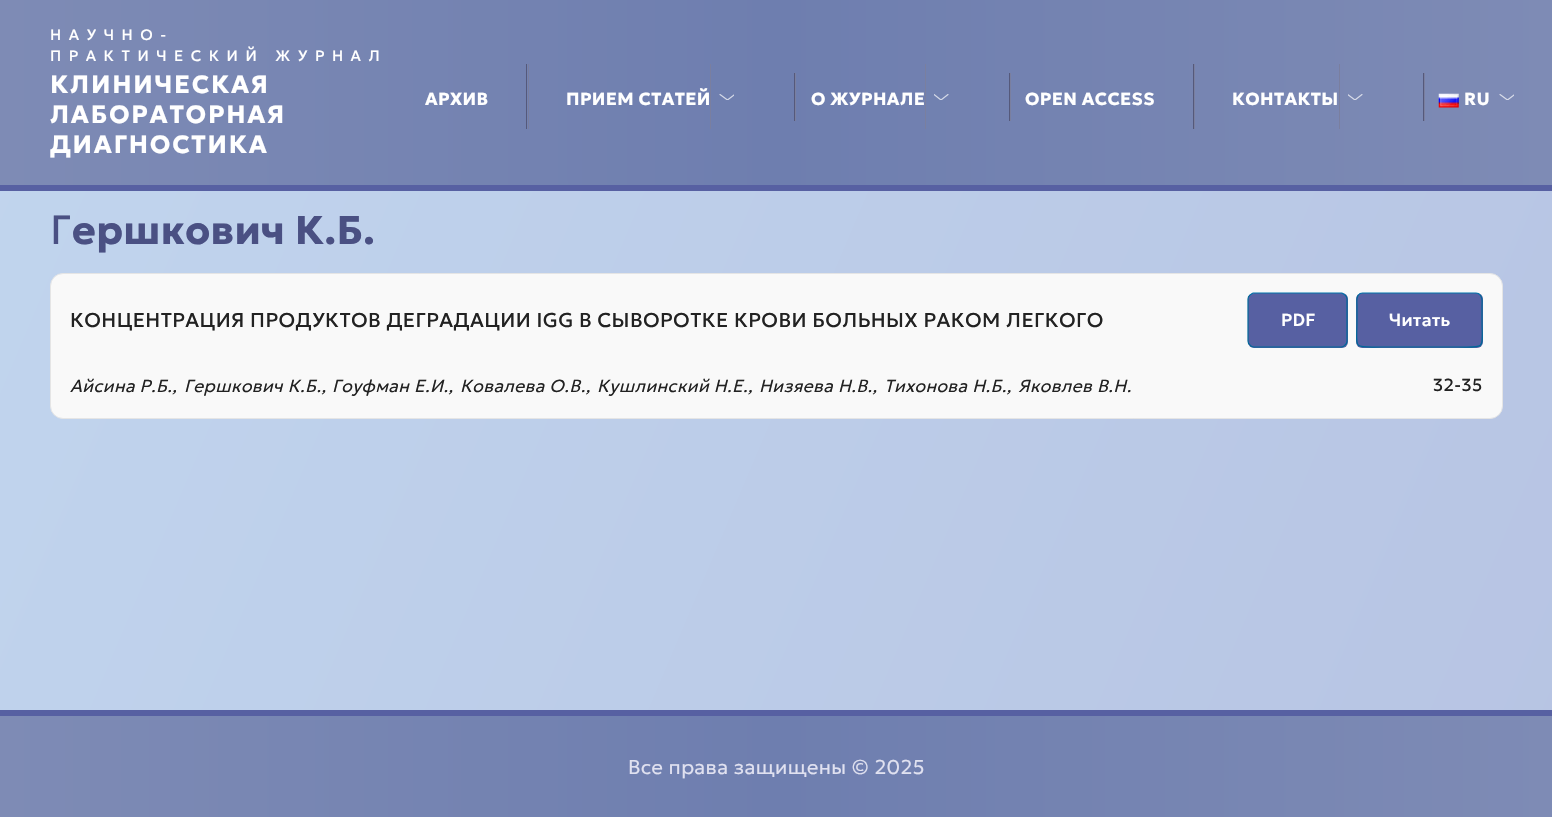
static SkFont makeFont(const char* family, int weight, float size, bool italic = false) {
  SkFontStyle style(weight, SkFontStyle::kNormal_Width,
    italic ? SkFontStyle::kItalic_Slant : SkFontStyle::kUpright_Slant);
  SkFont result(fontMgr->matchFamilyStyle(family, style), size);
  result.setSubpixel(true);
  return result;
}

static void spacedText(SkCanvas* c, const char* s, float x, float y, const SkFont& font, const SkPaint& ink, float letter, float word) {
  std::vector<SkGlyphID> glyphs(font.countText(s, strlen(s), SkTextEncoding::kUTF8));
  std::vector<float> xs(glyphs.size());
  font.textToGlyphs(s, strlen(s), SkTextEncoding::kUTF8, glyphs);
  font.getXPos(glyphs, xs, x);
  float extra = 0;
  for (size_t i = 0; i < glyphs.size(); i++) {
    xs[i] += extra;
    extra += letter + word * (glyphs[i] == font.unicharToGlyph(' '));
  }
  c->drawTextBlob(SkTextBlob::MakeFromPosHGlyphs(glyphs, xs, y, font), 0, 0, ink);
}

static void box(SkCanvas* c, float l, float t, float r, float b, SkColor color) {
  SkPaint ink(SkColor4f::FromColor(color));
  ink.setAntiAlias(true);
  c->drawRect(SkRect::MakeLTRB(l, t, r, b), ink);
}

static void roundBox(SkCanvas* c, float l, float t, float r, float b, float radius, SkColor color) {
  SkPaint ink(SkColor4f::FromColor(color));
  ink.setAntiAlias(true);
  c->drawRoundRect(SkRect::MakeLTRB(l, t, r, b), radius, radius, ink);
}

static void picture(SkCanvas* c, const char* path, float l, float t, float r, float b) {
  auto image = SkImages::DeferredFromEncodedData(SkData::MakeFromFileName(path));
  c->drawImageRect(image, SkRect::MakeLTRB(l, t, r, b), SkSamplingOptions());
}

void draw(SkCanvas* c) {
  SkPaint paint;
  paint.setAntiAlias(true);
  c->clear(0xffffffff);
  {
    const SkColor colors[] = {0xffc1d5ee, 0xffb7c4e3};
    const float stops[] = {0, 1};
    const SkPoint ends[] = {{-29, 67}, {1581, 750}};
    paint.setShader(SkGradientShader::MakeLinear(ends, colors, stops, 2, SkTileMode::kClamp));
    paint.setAlpha(255);
  }
  c->drawRect(SkRect::MakeLTRB(0, 191, 1552, 710), paint);
  {
    const SkColor colors[] = {0xff7e8bb5, 0xff6e7eaf, 0xff7e8bb5};
    const float stops[] = {0, 0.5f, 1};
    const SkPoint ends[] = {{0, 93}, {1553, 92}};
    paint.setShader(SkGradientShader::MakeLinear(ends, colors, stops, 3, SkTileMode::kClamp));
    paint.setAlpha(255);
  }
  c->drawRect(SkRect::MakeLTRB(0, 0, 1552, 185), paint);
  box(c, 0, 185, 1552, 191, 0xff5760a2);
  SkFont face1 = makeFont("Geologica", 400, 15);
  paint.setShader(nullptr);
  paint.setColor(0xffffffff);
  spacedText(c, "НАУЧНО-", 50, 40, face1, paint, 7.5f, 0);
  spacedText(c, "ПРАКТИЧЕСКИЙ ЖУРНАЛ", 50, 61, face1, paint, 7.5f, 0);
  SkFont face2 = makeFont("Geologica", 700, 25);
  spacedText(c, "КЛИНИЧЕСКАЯ", 50, 93, face2, paint, 1.75f, 0);
  spacedText(c, "ЛАБОРАТОРНАЯ", 50, 123, face2, paint, 1.75f, 0);
  spacedText(c, "ДИАГНОСТИКА", 50, 153, face2, paint, 1.75f, 0);
  SkFont face3 = makeFont("Geologica", 700, 17.5f);
  spacedText(c, "АРХИВ", 425, 105, face3, paint, 0.4f, 0);
  paint.setColor(0xff7a7f9f);
  c->drawPath(SkPathBuilder().moveTo(389, 129).lineTo(529, 129).lineTo(529, 64).lineTo(528, 64).lineTo(528, 129).close().detach(), paint);
  box(c, 526, 64, 527, 129, 0xff55597b);
  c->drawPath(SkPathBuilder().moveTo(530, 129).lineTo(711, 129).lineTo(711, 64).lineTo(710, 64).lineTo(710, 129).close().detach(), paint);
  box(c, 795, 73, 796, 121, 0xff7a7f9f);
  box(c, 794, 73, 795, 121, 0xff55597b);
  paint.setColor(0xffffffff);
  spacedText(c, "ПРИЕМ СТАТЕЙ", 566, 105, face3, paint, 0.4f, 0);
  c->save();
  c->clipRect(SkRect::MakeLTRB(719, 94, 734, 100));
  paint.setStyle(SkPaint::kStroke_Style);
  paint.setStrokeWidth(1.2f);
  paint.setStrokeCap(SkPaint::kRound_Cap);
  paint.setStrokeJoin(SkPaint::kRound_Join);
  paint.setColor(0xffd4d9e7);
  c->drawPath(SkPathBuilder().moveTo(720, 94.5f).lineTo(727.5f, 100).lineTo(734.5f, 94.5f).detach(), paint);
  c->restore();
  paint.setStyle(SkPaint::kFill_Style);
  paint.setColor(0xff7a7f9f);
  c->drawPath(SkPathBuilder().moveTo(774, 129).lineTo(926, 129).lineTo(926, 64).lineTo(925, 64).lineTo(925, 129).close().detach(), paint);
  box(c, 1010, 73, 1011, 121, 0xff7a7f9f);
  box(c, 1009, 73, 1010, 121, 0xff55597b);
  paint.setColor(0xffffffff);
  spacedText(c, "О ЖУРНАЛЕ", 811, 105, face3, paint, 0.4f, 0);
  c->save();
  c->clipRect(SkRect::MakeLTRB(934, 94, 949, 100));
  paint.setStyle(SkPaint::kStroke_Style);
  paint.setColor(0xffd4d9e7);
  c->drawPath(SkPathBuilder().moveTo(934, 94.5f).lineTo(941, 100).lineTo(948, 94.5f).detach(), paint);
  c->restore();
  paint.setStyle(SkPaint::kFill_Style);
  paint.setColor(0xffffffff);
  spacedText(c, "OPEN ACCESS", 1025, 105, face3, paint, 0.4f, 0);
  paint.setColor(0xff7a7f9f);
  c->drawPath(SkPathBuilder().moveTo(989, 129).lineTo(1195, 129).lineTo(1195, 64).lineTo(1194, 64).lineTo(1194, 129).close().detach(), paint);
  box(c, 1193, 64, 1194, 129, 0xff55597b);
  c->drawPath(SkPathBuilder().moveTo(1196, 129).lineTo(1340, 129).lineTo(1340, 64).lineTo(1339, 64).lineTo(1339, 129).close().detach(), paint);
  box(c, 1424, 73, 1425, 121, 0xff7a7f9f);
  box(c, 1423, 73, 1424, 121, 0xff55597b);
  paint.setColor(0xffffffff);
  spacedText(c, "КОНТАКТЫ", 1232, 105, face3, paint, 0.4f, 0);
  c->save();
  c->clipRect(SkRect::MakeLTRB(1348, 94, 1363, 100));
  paint.setStyle(SkPaint::kStroke_Style);
  paint.setColor(0xffd7dbe8);
  c->drawPath(SkPathBuilder().moveTo(1347.5f, 94.5f).lineTo(1355, 100).lineTo(1362, 94.5f).detach(), paint);
  c->restore();
  picture(c, "img_01.png", 1438, 93, 1459, 108);
  paint.setStyle(SkPaint::kFill_Style);
  paint.setColor(0xffffffff);
  spacedText(c, "RU", 1464, 105, face3, paint, 0.4f, 0);
  c->save();
  c->clipRect(SkRect::MakeLTRB(1499, 94, 1514, 100));
  paint.setStyle(SkPaint::kStroke_Style);
  paint.setColor(0xffd8dce9);
  c->drawPath(SkPathBuilder().moveTo(1500, 94.5f).lineTo(1507.5f, 100).lineTo(1514.5f, 94.5f).detach(), paint);
  c->restore();
  SkFont face4 = makeFont("Noto Sans", 500, 40);
  paint.setStyle(SkPaint::kFill_Style);
  paint.setColor(0xff4a5083);
  spacedText(c, "Г", 50, 244, face4, paint, 0.4f, 0);
  SkFont face5 = makeFont("Geologica", 700, 40);
  spacedText(c, "ершкович К.Б.", 72, 244, face5, paint, 0.4f, 0);
  paint.setColor(0xfff9f9f9);
  c->drawRoundRect(SkRect::MakeLTRB(50.5f, 273.5f, 1502.5f, 418.5f), 12.5f, 12.5f, paint);
  paint.setStyle(SkPaint::kStroke_Style);
  paint.setStrokeWidth(1);
  paint.setStrokeCap(SkPaint::kButt_Cap);
  paint.setStrokeJoin(SkPaint::kMiter_Join);
  paint.setColor(0xffe5e5e5);
  c->drawRoundRect(SkRect::MakeLTRB(50.5f, 273.5f, 1502.5f, 418.5f), 12.5f, 12.5f, paint);
  SkFont face6 = makeFont("Geologica", 400, 20);
  paint.setStyle(SkPaint::kFill_Style);
  paint.setColor(0xff222222);
  spacedText(c, "КОНЦЕНТРАЦИЯ ПРОДУКТОВ ДЕГРАДАЦИИ IGG В СЫВОРОТКЕ КРОВИ БОЛЬНЫХ РАКОМ ЛЕГКОГО", 70, 327, face6, paint, 0.4f, 0);
  roundBox(c, 1248, 293, 1348, 348, 6, 0xff5760a2);
  paint.setStyle(SkPaint::kStroke_Style);
  paint.setStrokeWidth(1.2f);
  paint.setColor(0xff0073aa);
  c->drawPath(SkPathBuilder().moveTo(1250, 295).lineTo(1253, 293).lineTo(1342, 293).lineTo(1345, 295).detach(), paint);
  paint.setColor(0xff006799);
  c->drawPath(SkPathBuilder().moveTo(1345, 295).cubicTo(1346.5f, 296, 1347, 297.5f, 1347, 299).lineTo(1347, 341).cubicTo(1347, 342.5f, 1346.5f, 344, 1345, 345).cubicTo(1344, 346.5f, 1342.5f, 347, 1341, 347).lineTo(1254, 347).cubicTo(1252.5f, 347, 1251, 346.5f, 1250, 345).cubicTo(1248.5f, 344, 1248, 342.5f, 1248, 341).lineTo(1248, 299).cubicTo(1248, 297.5f, 1248.5f, 296, 1250, 295).detach(), paint);
  SkFont face7 = makeFont("Geologica", 500, 17.5f);
  paint.setStyle(SkPaint::kFill_Style);
  paint.setColor(0xffffffff);
  spacedText(c, "PDF", 1281, 326, face7, paint, 0.25f, 0);
  roundBox(c, 1356, 293, 1483, 348, 6, 0xff5760a2);
  paint.setStyle(SkPaint::kStroke_Style);
  paint.setColor(0xff0073aa);
  c->drawPath(SkPathBuilder().moveTo(1358.5f, 295).cubicTo(1359.5f, 293.5f, 1361, 293, 1362.5f, 293).lineTo(1476, 293).cubicTo(1477.5f, 293, 1479, 293.5f, 1480, 295).detach(), paint);
  paint.setColor(0xff006799);
  c->drawPath(SkPathBuilder().moveTo(1480, 295).cubicTo(1483, 297.5f, 1482, 302.5f, 1482, 306).lineTo(1482, 320).cubicTo(1482, 350, 1487, 347, 1457.5f, 347).lineTo(1381.5f, 347).cubicTo(1351.5f, 347, 1357, 350, 1357, 320).lineTo(1357, 306).cubicTo(1357, 302.5f, 1356, 297.5f, 1358.5f, 295).detach(), paint);
  paint.setStyle(SkPaint::kFill_Style);
  paint.setColor(0xffffffff);
  spacedText(c, "Читать", 1389, 326, face7, paint, 0.25f, 0);
  SkFont face8 = makeFont("Geologica", 300, 17.5f, true);
  paint.setColor(0xff222222);
  spacedText(c, "Айсина Р.Б.,", 70, 392, face8, paint, 0.4f, 0);
  spacedText(c, "Гершкович К.Б.,", 184, 392, face8, paint, 0.4f, 0);
  spacedText(c, "Гоуфман Е.И.,", 332, 392, face8, paint, 0.4f, 0);
  spacedText(c, "Ковалева О.В.,", 460, 392, face8, paint, 0.4f, 0);
  spacedText(c, "Кушлинский Н.Е.,", 597, 392, face8, paint, 0.4f, 0);
  spacedText(c, "Низяева Н.В.,", 759, 392, face8, paint, 0.4f, 0);
  spacedText(c, "Тихонова Н.Б.,", 884, 392, face8, paint, 0.4f, 0);
  spacedText(c, "Яковлев В.Н.", 1018, 392, face8, paint, 0.4f, 0);
  SkFont face9 = makeFont("Geologica", 400, 17.5f);
  spacedText(c, "32-35", 1433, 391, face9, paint, 0.4f, 0);
  {
    const SkColor colors[] = {0xff7e8bb5, 0xff6e7eaf, 0xff7e8bb5};
    const float stops[] = {0, 0.5f, 1};
    const SkPoint ends[] = {{0, 767}, {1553, 767}};
    paint.setShader(SkGradientShader::MakeLinear(ends, colors, stops, 3, SkTileMode::kClamp));
    paint.setAlpha(255);
  }
  c->drawRect(SkRect::MakeLTRB(0, 716, 1552, 817), paint);
  box(c, 0, 710, 1552, 716, 0xff5760a2);
  SkFont face10 = makeFont("Geologica", 300, 20);
  paint.setShader(nullptr);
  paint.setColor(0xffe0e1f0);
  spacedText(c, "Все права защищены © 2025", 628, 774, face10, paint, 0.4f, 0);
}
